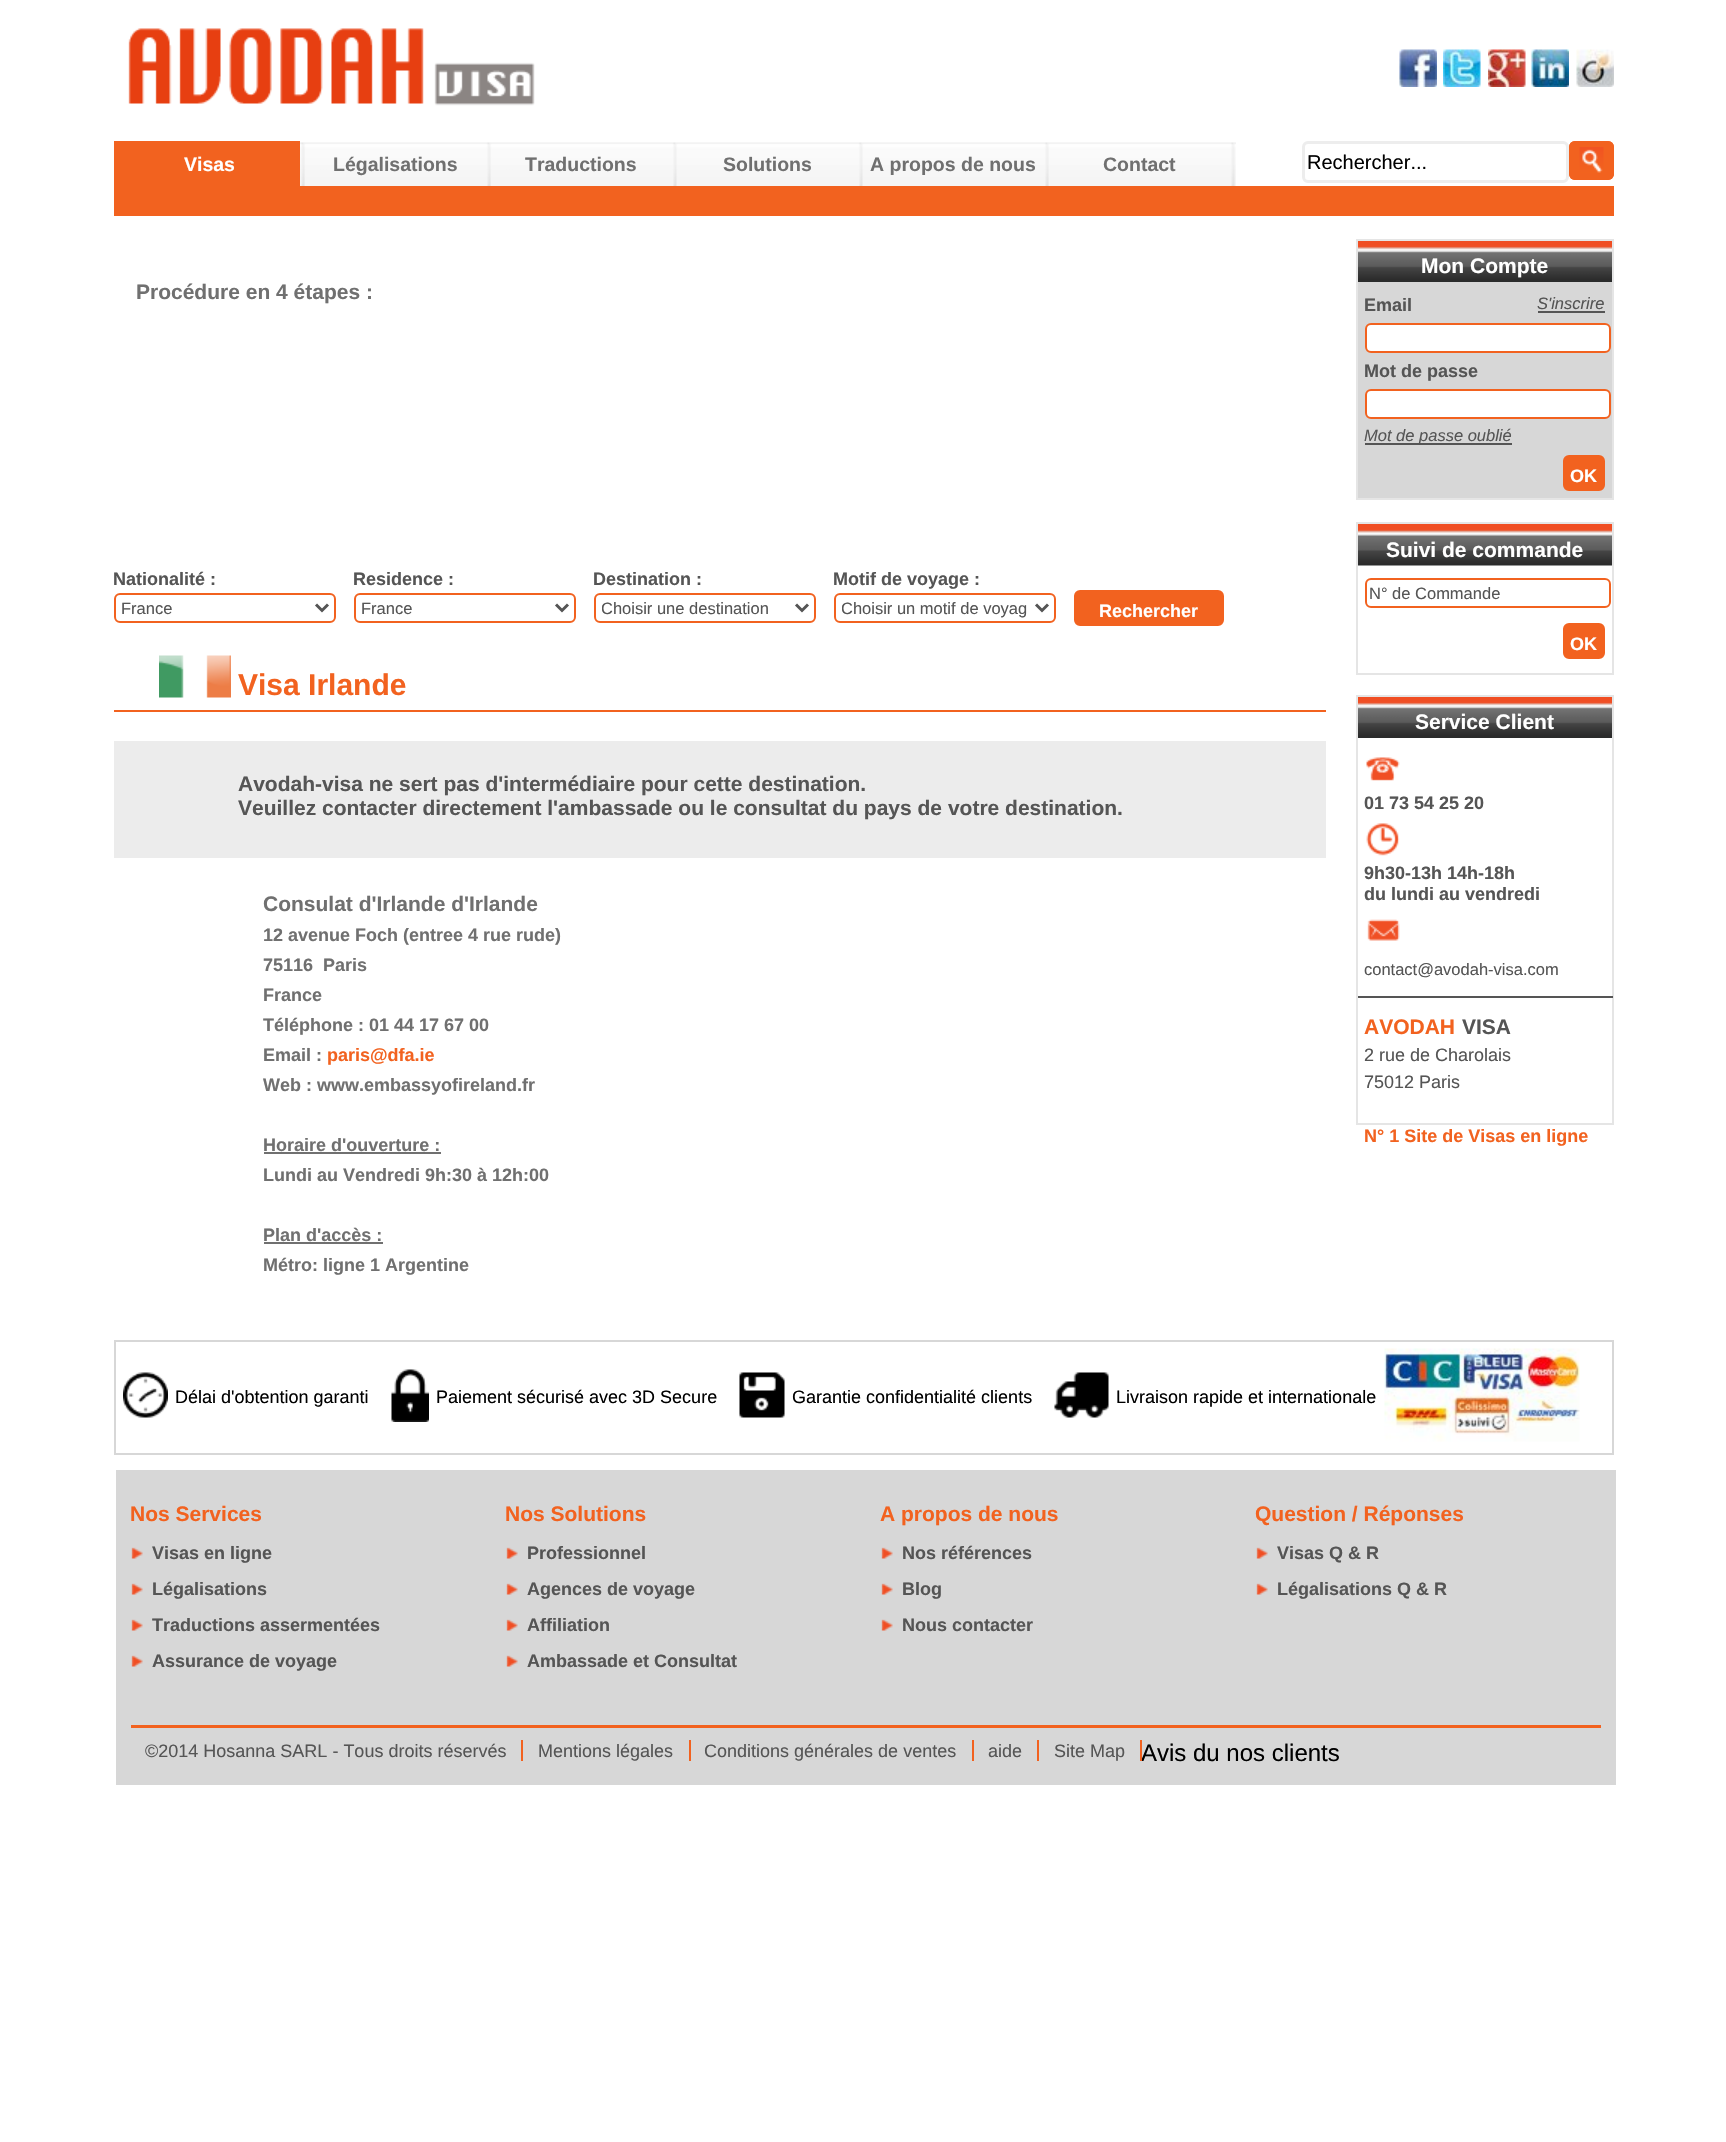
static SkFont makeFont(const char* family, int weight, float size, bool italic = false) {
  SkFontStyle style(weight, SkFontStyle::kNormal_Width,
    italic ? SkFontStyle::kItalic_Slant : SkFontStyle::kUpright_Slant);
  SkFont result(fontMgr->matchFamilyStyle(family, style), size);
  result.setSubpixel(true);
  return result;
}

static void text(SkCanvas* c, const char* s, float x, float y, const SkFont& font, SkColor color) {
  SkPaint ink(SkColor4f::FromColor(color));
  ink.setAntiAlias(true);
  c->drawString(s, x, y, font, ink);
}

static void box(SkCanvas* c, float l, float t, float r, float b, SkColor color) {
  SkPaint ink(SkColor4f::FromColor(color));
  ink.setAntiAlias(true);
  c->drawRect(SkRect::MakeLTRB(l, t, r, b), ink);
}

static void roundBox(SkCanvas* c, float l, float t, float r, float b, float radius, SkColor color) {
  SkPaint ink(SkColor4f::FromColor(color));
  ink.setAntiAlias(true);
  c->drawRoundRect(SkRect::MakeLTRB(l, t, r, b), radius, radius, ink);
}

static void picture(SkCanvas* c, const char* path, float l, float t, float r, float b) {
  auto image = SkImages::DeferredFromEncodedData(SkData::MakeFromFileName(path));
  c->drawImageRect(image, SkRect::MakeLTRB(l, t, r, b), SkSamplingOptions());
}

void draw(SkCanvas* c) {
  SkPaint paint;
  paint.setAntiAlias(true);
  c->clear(0xffffffff);
  picture(c, "img_01.png", 128, 28, 535, 106);
  picture(c, "img_02.png", 1399, 49, 1437, 87);
  picture(c, "img_03.png", 1443, 49, 1481, 87);
  picture(c, "img_04.png", 1488, 49, 1526, 87);
  picture(c, "img_05.png", 1531, 49, 1569, 87);
  picture(c, "img_06.png", 1576, 49, 1614, 87);
  box(c, 114, 141, 300, 186, 0xfff2621f);
  SkFont face1 = makeFont("Liberation Sans", 700, 19.5f);
  text(c, "Visas", 184, 171, face1, 0xffffffff);
  picture(c, "img_07.png", 300, 142, 306, 186);
  picture(c, "img_08.png", 306, 142, 486, 186);
  text(c, "Légalisations", 333, 171, face1, 0xff707070);
  picture(c, "img_07.png", 486, 142, 492, 186);
  picture(c, "img_08.png", 492, 142, 672, 186);
  text(c, "Traductions", 525, 171, face1, 0xff707070);
  picture(c, "img_09.png", 672, 142, 678, 186);
  picture(c, "img_10.png", 678, 142, 858, 186);
  text(c, "Solutions", 723, 171, face1, 0xff707070);
  picture(c, "img_09.png", 858, 142, 864, 186);
  picture(c, "img_10.png", 864, 142, 1044, 186);
  text(c, "A propos de nous", 870, 171, face1, 0xff707070);
  picture(c, "img_07.png", 1044, 142, 1050, 186);
  picture(c, "img_10.png", 1050, 142, 1230, 186);
  text(c, "Contact", 1103, 171, face1, 0xff707070);
  picture(c, "img_07.png", 1230, 142, 1236, 186);
  paint.setStyle(SkPaint::kStroke_Style);
  paint.setStrokeWidth(3);
  paint.setColor(0xffededed);
  c->drawRoundRect(SkRect::MakeLTRB(1303.5f, 142.5f, 1567.5f, 181.5f), 4.5f, 4.5f, paint);
  SkFont face2 = makeFont("Liberation Sans", 400, 20);
  text(c, "Rechercher...", 1307, 169, face2, 0xff000000);
  roundBox(c, 1569, 141, 1614, 180, 6, 0xfff2621f);
  picture(c, "img_11.png", 1579, 147, 1604, 173);
  paint.setColor(0xfff2621f);
  c->drawRoundRect(SkRect::MakeLTRB(1570.5f, 142.5f, 1612.5f, 178.5f), 4.5f, 4.5f, paint);
  box(c, 114, 186, 1614, 216, 0xfff2621f);
  SkFont face3 = makeFont("Liberation Sans", 700, 21);
  text(c, "Procédure en 4 étapes :", 136, 299, face3, 0xff707070);
  SkFont face4 = makeFont("Liberation Sans", 700, 18);
  text(c, "Nationalité :", 113, 585, face4, 0xff555555);
  text(c, "Residence :", 353, 585, face4, 0xff555555);
  text(c, "Destination :", 593, 585, face4, 0xff555555);
  text(c, "Motif de voyage :", 833, 585, face4, 0xff555555);
  paint.setStrokeWidth(2);
  c->drawRoundRect(SkRect::MakeLTRB(115, 594, 335, 622), 5, 5, paint);
  paint.setStrokeWidth(3);
  paint.setColor(0xff555555);
  c->drawPath(SkPathBuilder().moveTo(316, 604.5f).lineTo(322, 610.5f).lineTo(328, 604.5f).detach(), paint);
  SkFont face5 = makeFont("Liberation Sans", 400, 16.5f);
  text(c, "France", 121, 614, face5, 0xff555555);
  paint.setStrokeWidth(2);
  paint.setColor(0xfff2621f);
  c->drawRoundRect(SkRect::MakeLTRB(355, 594, 575, 622), 5, 5, paint);
  paint.setStrokeWidth(3);
  paint.setColor(0xff555555);
  c->drawPath(SkPathBuilder().moveTo(556, 604.5f).lineTo(562, 610.5f).lineTo(568, 604.5f).detach(), paint);
  text(c, "France", 361, 614, face5, 0xff555555);
  paint.setStrokeWidth(2);
  paint.setColor(0xfff2621f);
  c->drawRoundRect(SkRect::MakeLTRB(595, 594, 815, 622), 5, 5, paint);
  paint.setStrokeWidth(3);
  paint.setColor(0xff555555);
  c->drawPath(SkPathBuilder().moveTo(796, 604.5f).lineTo(802, 610.5f).lineTo(808, 604.5f).detach(), paint);
  c->save();
  c->clipRect(SkRect::MakeLTRB(602, 597, 791, 618));
  text(c, "Choisir une destination", 601, 614, face5, 0xff555555);
  c->restore();
  paint.setStrokeWidth(2);
  paint.setColor(0xfff2621f);
  c->drawRoundRect(SkRect::MakeLTRB(835, 594, 1055, 622), 5, 5, paint);
  paint.setStrokeWidth(3);
  paint.setColor(0xff555555);
  c->drawPath(SkPathBuilder().moveTo(1036, 604.5f).lineTo(1042, 610.5f).lineTo(1048, 604.5f).detach(), paint);
  c->save();
  c->clipRect(SkRect::MakeLTRB(842, 597, 1031, 618));
  text(c, "Choisir un motif de voyag", 841, 614, face5, 0xff555555);
  c->restore();
  paint.setStyle(SkPaint::kFill_Style);
  paint.setColor(0xfff2621f);
  c->drawRoundRect(SkRect::MakeLTRB(1075.5f, 591.5f, 1222.5f, 624.5f), 4.5f, 4.5f, paint);
  paint.setStyle(SkPaint::kStroke_Style);
  c->drawRoundRect(SkRect::MakeLTRB(1075.5f, 591.5f, 1222.5f, 624.5f), 4.5f, 4.5f, paint);
  text(c, "Rechercher", 1099, 617, face4, 0xffffffff);
  picture(c, "img_12.png", 159, 655, 231, 698);
  SkFont face6 = makeFont("Liberation Sans", 700, 30);
  text(c, "Visa Irlande", 238, 695, face6, 0xfff2621f);
  box(c, 114, 710, 1326, 712, 0xfff2621f);
  box(c, 114, 741, 1326, 858, 0xffececec);
  text(c, "Avodah-visa ne sert pas d'intermédiaire pour cette destination.", 238, 791, face3, 0xff555555);
  text(c, "Veuillez contacter directement l'ambassade ou le consultat du pays de votre destination.", 238, 815, face3, 0xff555555);
  text(c, "Consulat d'Irlande d'Irlande", 263, 911, face3, 0xff707070);
  text(c, "12 avenue Foch (entree 4 rue rude)", 263, 941, face4, 0xff707070);
  text(c, "75116  Paris", 263, 971, face4, 0xff707070);
  text(c, "France", 263, 1001, face4, 0xff707070);
  text(c, "Téléphone : 01 44 17 67 00", 263, 1031, face4, 0xff707070);
  text(c, "Email :", 263, 1061, face4, 0xff707070);
  text(c, "paris@dfa.ie", 327, 1061, face4, 0xfff2621f);
  text(c, "Web : www.embassyofireland.fr", 263, 1091, face4, 0xff707070);
  text(c, "Horaire d'ouverture :", 263, 1151, face4, 0xff707070);
  box(c, 264, 1152, 441, 1154, 0xff707070);
  text(c, "Lundi au Vendredi 9h:30 à 12h:00", 263, 1181, face4, 0xff707070);
  text(c, "Plan d'accès :", 263, 1241, face4, 0xff707070);
  box(c, 264, 1242, 383, 1244, 0xff707070);
  text(c, "Métro: ligne 1 Argentine", 263, 1271, face4, 0xff707070);
  box(c, 1358, 282, 1612, 498, 0xffd7d7d7);
  picture(c, "img_13.png", 1358, 241, 1612, 282);
  paint.setStrokeWidth(2);
  paint.setColor(0xffe5e5e5);
  c->drawRect(SkRect::MakeLTRB(1357, 240, 1613, 499), paint);
  text(c, "Mon Compte", 1421, 273, face3, 0xffffffff);
  text(c, "Email", 1364, 311, face4, 0xff555555);
  SkFont face7 = makeFont("Liberation Sans", 400, 16.5f, true);
  text(c, "S'inscrire", 1537, 309, face7, 0xff555555);
  box(c, 1538, 311, 1605, 313, 0xff555555);
  paint.setStyle(SkPaint::kFill_Style);
  paint.setColor(0xffffffff);
  c->drawRoundRect(SkRect::MakeLTRB(1366, 324, 1610, 352), 5, 5, paint);
  paint.setStyle(SkPaint::kStroke_Style);
  paint.setColor(0xfff2621f);
  c->drawRoundRect(SkRect::MakeLTRB(1366, 324, 1610, 352), 5, 5, paint);
  text(c, "Mot de passe", 1364, 377, face4, 0xff555555);
  paint.setStyle(SkPaint::kFill_Style);
  paint.setColor(0xffffffff);
  c->drawRoundRect(SkRect::MakeLTRB(1366, 390, 1610, 418), 5, 5, paint);
  paint.setStyle(SkPaint::kStroke_Style);
  paint.setColor(0xfff2621f);
  c->drawRoundRect(SkRect::MakeLTRB(1366, 390, 1610, 418), 5, 5, paint);
  box(c, 1365, 443, 1512, 445, 0xff555555);
  text(c, "Mot de passe oublié", 1364, 441, face7, 0xff555555);
  paint.setStyle(SkPaint::kFill_Style);
  c->drawRoundRect(SkRect::MakeLTRB(1564.5f, 456.5f, 1603.5f, 489.5f), 4.5f, 4.5f, paint);
  paint.setStyle(SkPaint::kStroke_Style);
  paint.setStrokeWidth(3);
  c->drawRoundRect(SkRect::MakeLTRB(1564.5f, 456.5f, 1603.5f, 489.5f), 4.5f, 4.5f, paint);
  text(c, "OK", 1570, 482, face4, 0xffffffff);
  picture(c, "img_14.png", 1358, 524, 1612, 566);
  paint.setStrokeWidth(2);
  paint.setColor(0xffe5e5e5);
  c->drawRect(SkRect::MakeLTRB(1357, 523, 1613, 674), paint);
  text(c, "Suivi de commande", 1386, 557, face3, 0xffffffff);
  paint.setColor(0xfff2621f);
  c->drawRoundRect(SkRect::MakeLTRB(1366, 579, 1610, 607), 5, 5, paint);
  text(c, "N° de Commande", 1369, 599, face5, 0xff555555);
  paint.setStyle(SkPaint::kFill_Style);
  c->drawRoundRect(SkRect::MakeLTRB(1564.5f, 624.5f, 1603.5f, 657.5f), 4.5f, 4.5f, paint);
  paint.setStyle(SkPaint::kStroke_Style);
  paint.setStrokeWidth(3);
  c->drawRoundRect(SkRect::MakeLTRB(1564.5f, 624.5f, 1603.5f, 657.5f), 4.5f, 4.5f, paint);
  text(c, "OK", 1570, 650, face4, 0xffffffff);
  picture(c, "img_15.png", 1358, 697, 1612, 738);
  paint.setStrokeWidth(2);
  paint.setColor(0xffe5e5e5);
  c->drawRect(SkRect::MakeLTRB(1357, 696, 1613, 1124), paint);
  text(c, "Service Client", 1415, 729, face3, 0xffffffff);
  picture(c, "img_16.png", 1366, 757, 1400, 781);
  text(c, "01 73 54 25 20", 1364, 809, face4, 0xff555555);
  picture(c, "img_17.png", 1366, 823, 1400, 856);
  text(c, "9h30-13h 14h-18h", 1364, 879, face4, 0xff555555);
  text(c, "du lundi au vendredi", 1364, 900, face4, 0xff555555);
  picture(c, "img_18.png", 1367, 919, 1400, 941);
  text(c, "contact@avodah-visa.com", 1364, 975, face5, 0xff555555);
  box(c, 1358, 996, 1613, 998, 0xff555555);
  text(c, "AVODAH", 1364, 1034, face3, 0xfff2621f);
  text(c, "VISA", 1462, 1034, face3, 0xff555555);
  SkFont face8 = makeFont("Liberation Sans", 400, 18);
  text(c, "2 rue de Charolais", 1364, 1061, face8, 0xff555555);
  text(c, "75012 Paris", 1364, 1088, face8, 0xff555555);
  text(c, "N° 1 Site de Visas en ligne", 1364, 1142, face4, 0xfff2621f);
  paint.setColor(0xffd7d7d7);
  c->drawRect(SkRect::MakeLTRB(115, 1341, 1613, 1454), paint);
  picture(c, "img_19.png", 123, 1372, 168, 1418);
  text(c, "Délai d'obtention garanti", 175, 1403, face8, 0xff000000);
  picture(c, "img_20.png", 391, 1369, 429, 1422);
  text(c, "Paiement sécurisé avec 3D Secure", 436, 1403, face8, 0xff000000);
  picture(c, "img_21.png", 739, 1372, 785, 1418);
  text(c, "Garantie confidentialité clients", 792, 1403, face8, 0xff000000);
  picture(c, "img_22.png", 1054, 1372, 1109, 1418);
  text(c, "Livraison rapide et internationale", 1116, 1403, face8, 0xff000000);
  picture(c, "img_23.png", 1384, 1348, 1580, 1442);
  box(c, 116, 1470, 1616, 1785, 0xffd7d7d7);
  text(c, "Nos Services", 130, 1521, face3, 0xfff2621f);
  picture(c, "img_24.png", 131, 1547, 143, 1559);
  text(c, "Visas en ligne", 152, 1559, face4, 0xff555555);
  picture(c, "img_24.png", 131, 1583, 143, 1595);
  text(c, "Légalisations", 152, 1595, face4, 0xff555555);
  picture(c, "img_24.png", 131, 1619, 143, 1631);
  text(c, "Traductions assermentées", 152, 1631, face4, 0xff555555);
  picture(c, "img_24.png", 131, 1655, 143, 1667);
  text(c, "Assurance de voyage", 152, 1667, face4, 0xff555555);
  text(c, "Nos Solutions", 505, 1521, face3, 0xfff2621f);
  picture(c, "img_24.png", 506, 1547, 518, 1559);
  text(c, "Professionnel", 527, 1559, face4, 0xff555555);
  picture(c, "img_24.png", 506, 1583, 518, 1595);
  text(c, "Agences de voyage", 527, 1595, face4, 0xff555555);
  picture(c, "img_24.png", 506, 1619, 518, 1631);
  text(c, "Affiliation", 527, 1631, face4, 0xff555555);
  picture(c, "img_24.png", 506, 1655, 518, 1667);
  text(c, "Ambassade et Consultat", 527, 1667, face4, 0xff555555);
  text(c, "A propos de nous", 880, 1521, face3, 0xfff2621f);
  picture(c, "img_24.png", 881, 1547, 893, 1559);
  text(c, "Nos références", 902, 1559, face4, 0xff555555);
  picture(c, "img_24.png", 881, 1583, 893, 1595);
  text(c, "Blog", 902, 1595, face4, 0xff555555);
  picture(c, "img_24.png", 881, 1619, 893, 1631);
  text(c, "Nous contacter", 902, 1631, face4, 0xff555555);
  text(c, "Question / Réponses", 1255, 1521, face3, 0xfff2621f);
  picture(c, "img_24.png", 1256, 1547, 1268, 1559);
  text(c, "Visas Q & R", 1277, 1559, face4, 0xff555555);
  picture(c, "img_24.png", 1256, 1583, 1268, 1595);
  text(c, "Légalisations Q & R", 1277, 1595, face4, 0xff555555);
  box(c, 131, 1725, 1601, 1728, 0xfff2621f);
  box(c, 521, 1740, 523, 1761, 0xfff2621f);
  text(c, "©2014 Hosanna SARL - Tous droits réservés", 145, 1757, face8, 0xff555555);
  box(c, 689, 1740, 691, 1761, 0xfff2621f);
  text(c, "Mentions légales", 538, 1757, face8, 0xff555555);
  box(c, 972, 1740, 974, 1761, 0xfff2621f);
  text(c, "Conditions générales de ventes", 704, 1757, face8, 0xff555555);
  box(c, 1037, 1740, 1039, 1761, 0xfff2621f);
  text(c, "aide", 988, 1757, face8, 0xff555555);
  SkFont face9 = makeFont("Liberation Sans", 400, 24);
  text(c, "Avis du nos clients", 1141, 1761, face9, 0xff000000);
  box(c, 1140, 1740, 1142, 1761, 0xfff2621f);
  text(c, "Site Map", 1054, 1757, face8, 0xff555555);
}
